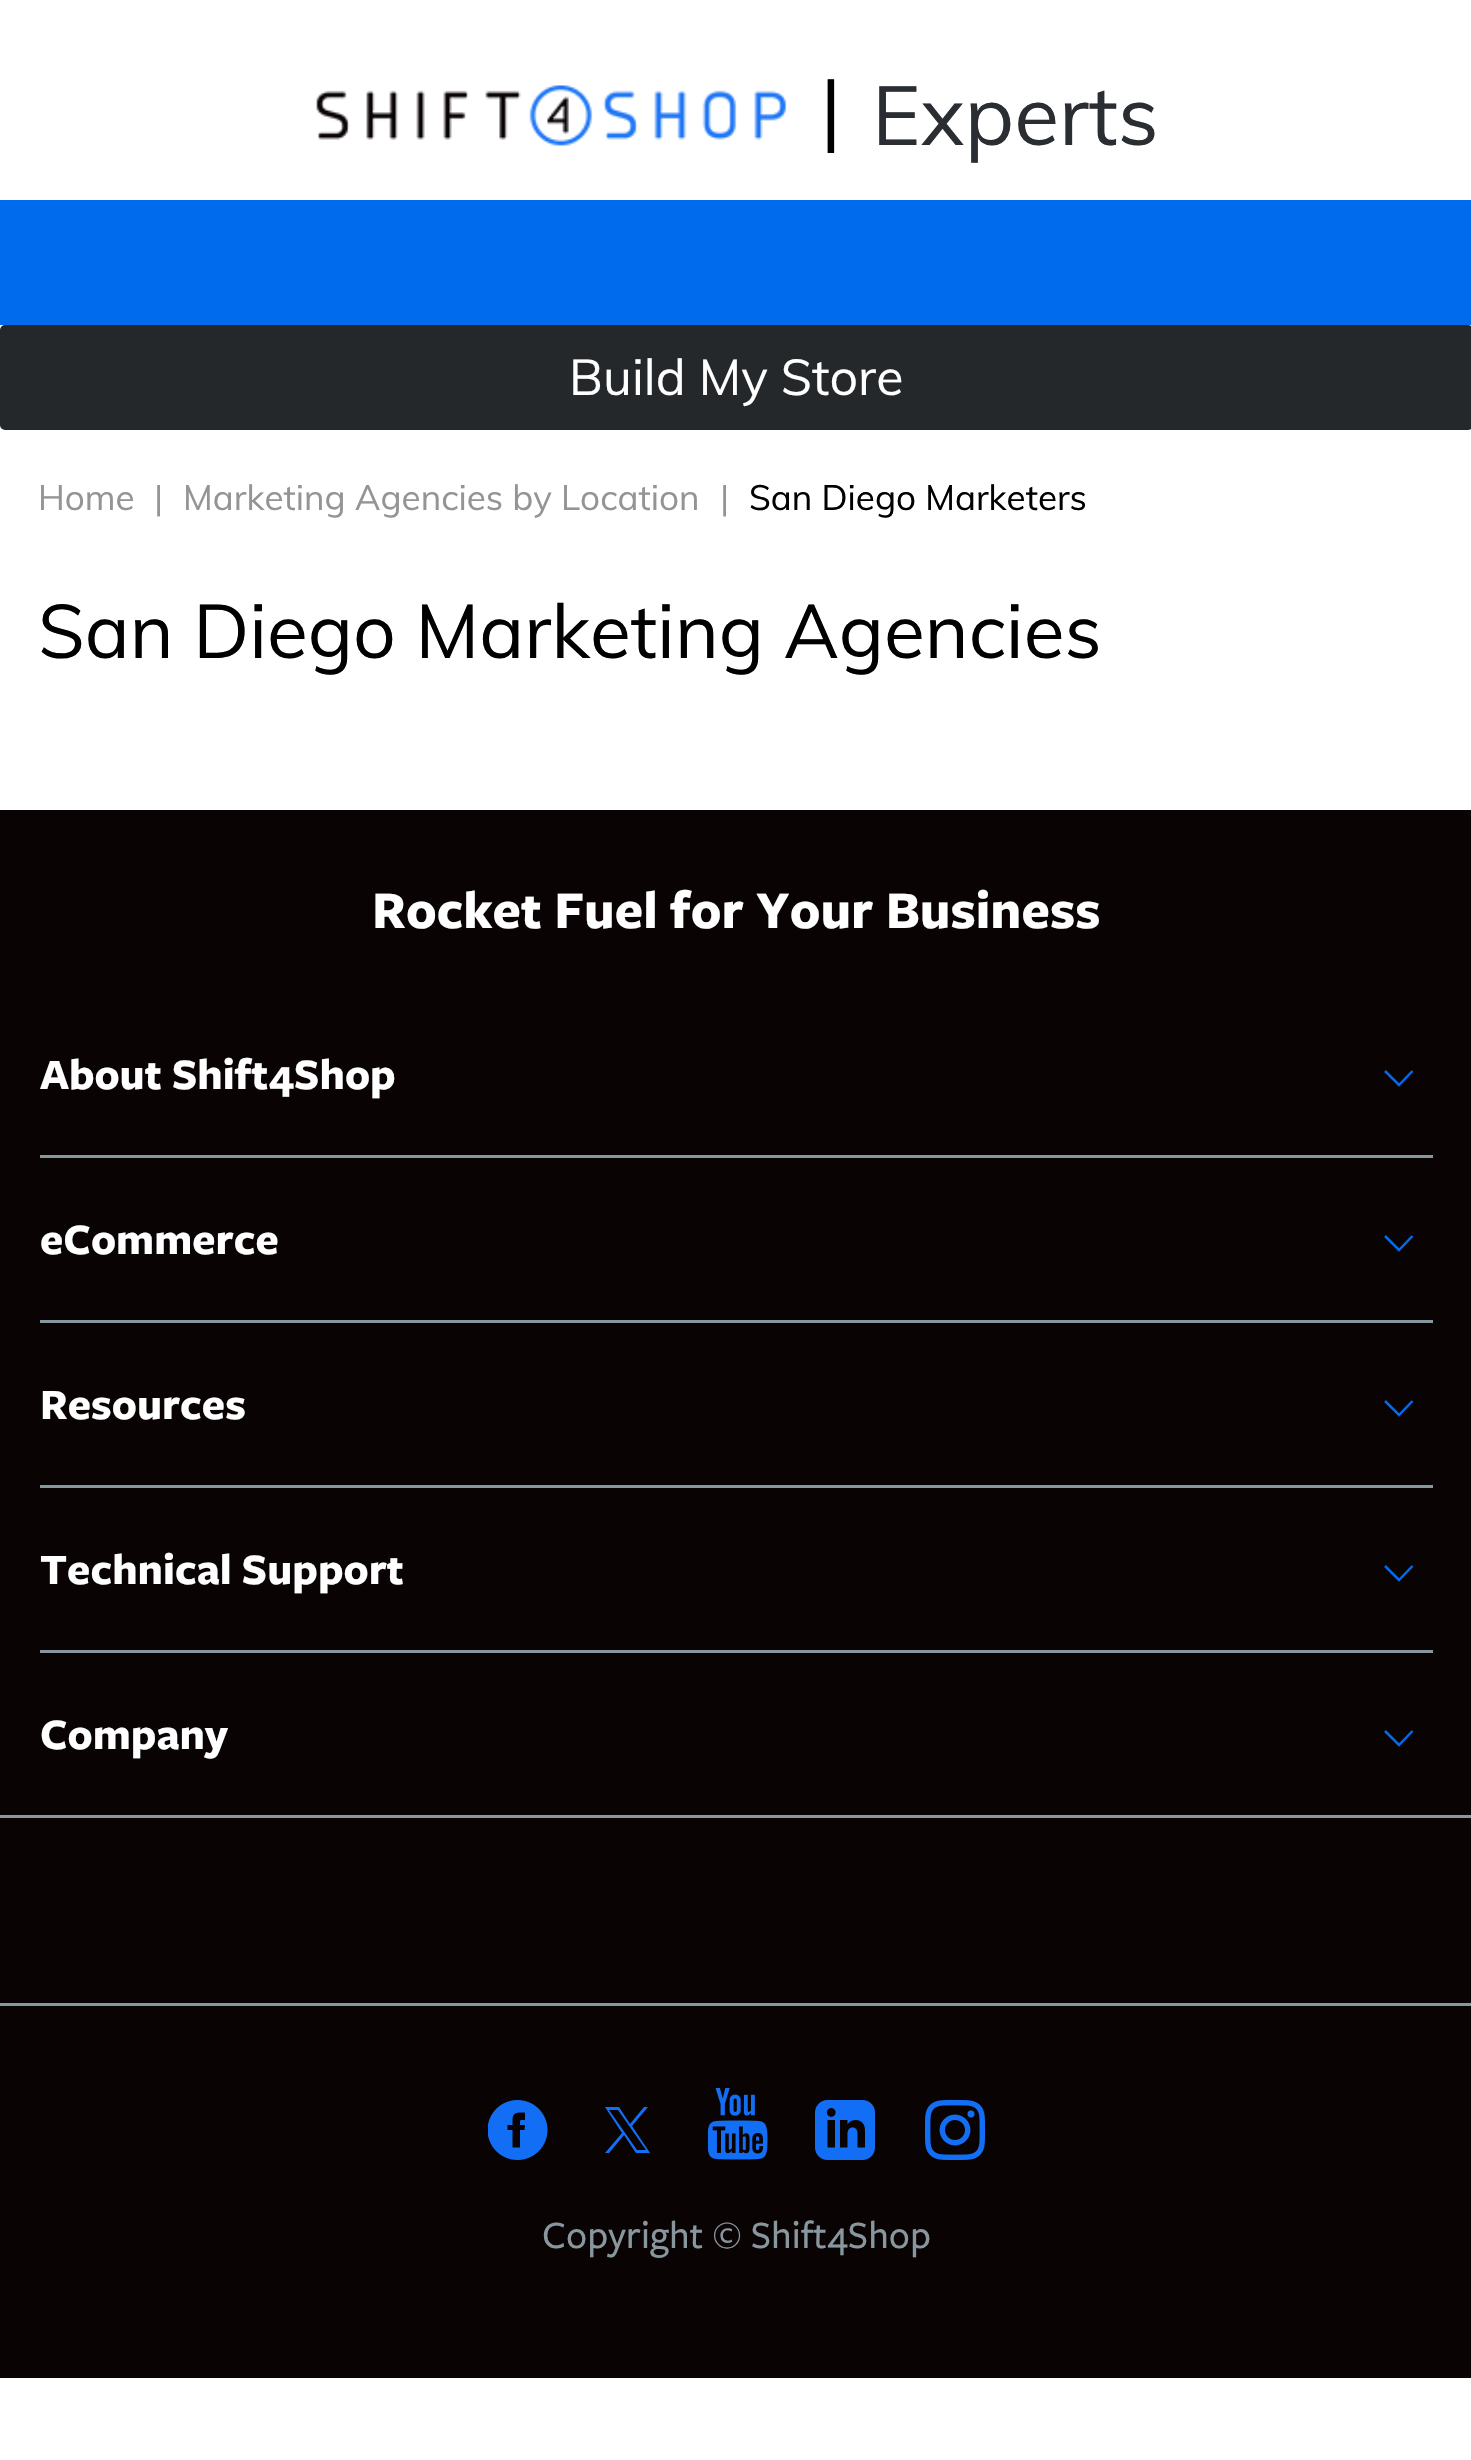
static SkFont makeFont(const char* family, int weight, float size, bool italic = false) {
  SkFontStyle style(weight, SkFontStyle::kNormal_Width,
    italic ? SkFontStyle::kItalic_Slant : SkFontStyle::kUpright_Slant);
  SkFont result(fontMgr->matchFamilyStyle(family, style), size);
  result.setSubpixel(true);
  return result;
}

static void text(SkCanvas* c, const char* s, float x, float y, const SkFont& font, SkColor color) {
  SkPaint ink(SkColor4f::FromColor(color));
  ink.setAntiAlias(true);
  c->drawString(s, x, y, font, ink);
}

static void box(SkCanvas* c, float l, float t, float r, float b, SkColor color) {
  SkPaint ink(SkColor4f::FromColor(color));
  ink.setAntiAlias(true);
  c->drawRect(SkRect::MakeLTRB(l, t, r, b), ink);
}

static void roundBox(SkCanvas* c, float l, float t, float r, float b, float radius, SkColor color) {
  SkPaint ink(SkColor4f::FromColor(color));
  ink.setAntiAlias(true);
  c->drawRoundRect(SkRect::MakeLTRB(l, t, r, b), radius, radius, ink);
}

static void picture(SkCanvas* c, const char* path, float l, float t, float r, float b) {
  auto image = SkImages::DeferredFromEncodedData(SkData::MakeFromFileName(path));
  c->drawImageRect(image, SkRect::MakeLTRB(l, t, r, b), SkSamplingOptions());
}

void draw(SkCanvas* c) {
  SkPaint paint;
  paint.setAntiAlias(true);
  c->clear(0xffffffff);
  picture(c, "img_01.png", 316, 85, 787, 146);
  SkFont face1 = makeFont("Muli", 400, 82.5f);
  text(c, "|", 820, 138, face1, 0xff000000);
  text(c, "Experts", 872, 145, face1, 0xff2a2d32);
  box(c, 0, 200, 1471, 325, 0xff006bed);
  roundBox(c, 0, 325, 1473, 430, 5, 0xff25282a);
  SkFont face2 = makeFont("Muli", 400, 50);
  text(c, "Build My Store", 569, 395, face2, 0xffffffff);
  SkFont face3 = makeFont("Muli", 400, 35);
  text(c, "Home", 38, 510, face3, 0xff949494);
  text(c, "|", 154, 510, face3, 0xff949494);
  text(c, "Marketing Agencies by Location", 183, 510, face3, 0xff949494);
  text(c, "|", 720, 510, face3, 0xff949494);
  text(c, "San Diego Marketers", 749, 510, face3, 0xff000000);
  SkFont face4 = makeFont("Muli", 400, 75);
  text(c, "San Diego Marketing Agencies", 38, 658, face4, 0xff000000);
  box(c, 0, 810, 1471, 2378, 0xff090304);
  SkFont face5 = makeFont("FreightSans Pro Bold", 700, 55);
  text(c, "Rocket Fuel for Your Business", 372, 928, face5, 0xffffffff);
  box(c, 40, 1155, 1433, 1158, 0xff88969e);
  SkFont face6 = makeFont("FreightSans Pro Bold", 700, 45);
  text(c, "About Shift4Shop", 40, 1089, face6, 0xffffffff);
  paint.setStyle(SkPaint::kStroke_Style);
  paint.setStrokeWidth(2.5f);
  paint.setColor(0xff006bed);
  c->drawPath(SkPathBuilder().moveTo(1412.5f, 1071).lineTo(1399, 1085).lineTo(1385, 1071).detach(), paint);
  box(c, 40, 1320, 1433, 1323, 0xff88969e);
  text(c, "eCommerce", 40, 1254, face6, 0xffffffff);
  c->drawPath(SkPathBuilder().moveTo(1412.5f, 1236).lineTo(1399, 1250).lineTo(1385, 1236).detach(), paint);
  box(c, 40, 1485, 1433, 1488, 0xff88969e);
  text(c, "Resources", 40, 1419, face6, 0xffffffff);
  c->drawPath(SkPathBuilder().moveTo(1412.5f, 1401).lineTo(1399, 1415).lineTo(1385, 1401).detach(), paint);
  box(c, 40, 1650, 1433, 1653, 0xff88969e);
  text(c, "Technical Support", 40, 1584, face6, 0xffffffff);
  c->drawPath(SkPathBuilder().moveTo(1412.5f, 1566).lineTo(1399, 1580).lineTo(1385, 1566).detach(), paint);
  text(c, "Company", 40, 1749, face6, 0xffffffff);
  c->drawPath(SkPathBuilder().moveTo(1412.5f, 1731).lineTo(1399, 1745).lineTo(1385, 1731).detach(), paint);
  box(c, 0, 1815, 1471, 1818, 0xff88969e);
  box(c, 0, 2003, 1471, 2006, 0xff88969e);
  picture(c, "img_02.png", 488, 2100, 548, 2160);
  paint.setStyle(SkPaint::kFill_Style);
  paint.setColor(0xff136ef6);
  c->drawPath(SkPathBuilder().moveTo(605, 2107).lineTo(622, 2133).lineTo(605, 2153).lineTo(609, 2153).lineTo(624, 2135).lineTo(636, 2153).lineTo(650, 2153).lineTo(632, 2126).lineTo(648, 2107).lineTo(644, 2107).lineTo(630, 2124).lineTo(619, 2107).close().moveTo(609, 2110).lineTo(618, 2110).lineTo(646, 2150).lineTo(637, 2150).close().detach(), paint);
  picture(c, "img_03.png", 708, 2088, 768, 2160);
  picture(c, "img_04.png", 815, 2100, 875, 2160);
  picture(c, "img_05.png", 925, 2100, 985, 2160);
  SkFont face7 = makeFont("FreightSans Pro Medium", 500, 40);
  text(c, "Copyright © Shift4Shop", 542, 2248, face7, 0xff88969e);
}
